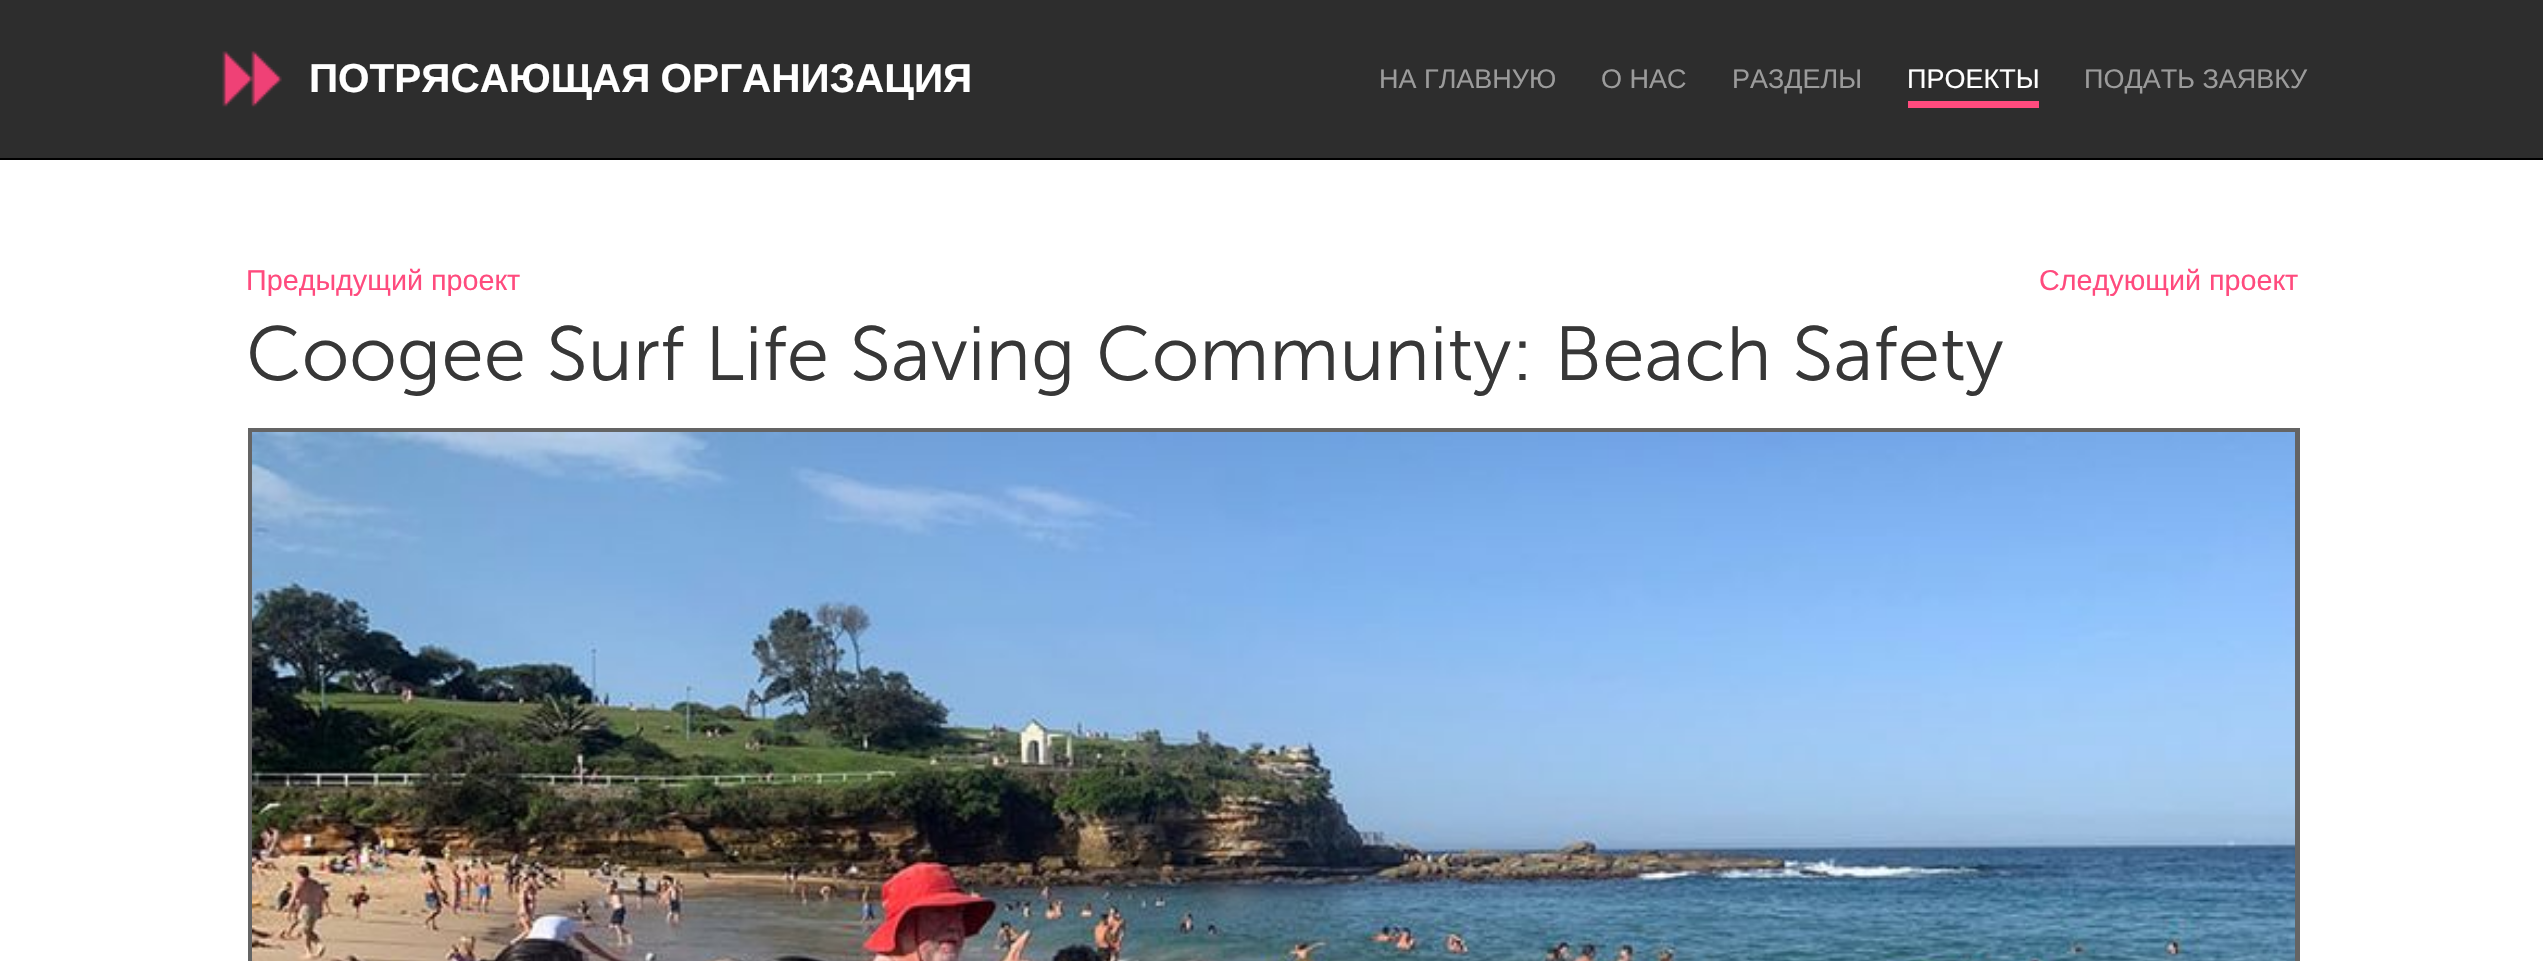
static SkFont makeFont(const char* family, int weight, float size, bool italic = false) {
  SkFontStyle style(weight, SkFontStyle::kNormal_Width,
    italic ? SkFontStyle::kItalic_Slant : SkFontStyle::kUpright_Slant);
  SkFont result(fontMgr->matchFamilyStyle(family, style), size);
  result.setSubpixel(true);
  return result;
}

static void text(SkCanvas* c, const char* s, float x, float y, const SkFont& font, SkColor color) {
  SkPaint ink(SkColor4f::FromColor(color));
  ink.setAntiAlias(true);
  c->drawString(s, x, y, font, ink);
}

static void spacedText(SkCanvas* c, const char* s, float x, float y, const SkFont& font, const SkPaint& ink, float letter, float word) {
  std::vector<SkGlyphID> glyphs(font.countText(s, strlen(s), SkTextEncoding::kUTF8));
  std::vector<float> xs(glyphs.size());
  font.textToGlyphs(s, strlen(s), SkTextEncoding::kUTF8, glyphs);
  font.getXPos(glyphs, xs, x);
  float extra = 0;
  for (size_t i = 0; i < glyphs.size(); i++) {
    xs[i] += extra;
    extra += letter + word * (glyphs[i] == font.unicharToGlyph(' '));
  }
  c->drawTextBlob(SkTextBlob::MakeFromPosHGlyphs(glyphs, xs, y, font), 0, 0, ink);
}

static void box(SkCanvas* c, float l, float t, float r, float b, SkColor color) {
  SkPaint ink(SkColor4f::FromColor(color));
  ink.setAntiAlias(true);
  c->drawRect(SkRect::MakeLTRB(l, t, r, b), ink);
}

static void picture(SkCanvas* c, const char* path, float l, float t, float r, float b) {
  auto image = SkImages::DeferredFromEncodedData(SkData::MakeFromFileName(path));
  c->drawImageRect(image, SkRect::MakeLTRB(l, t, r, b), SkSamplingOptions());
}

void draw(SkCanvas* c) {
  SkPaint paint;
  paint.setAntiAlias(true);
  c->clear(0xffffffff);
  box(c, 0, 0, 2543, 158, 0xff2d2d2d);
  box(c, 0, 158, 2543, 160, 0xff000000);
  picture(c, "img_01.png", 222, 51, 282, 107);
  SkFont face1 = makeFont("Liberation Sans", 700, 40.5f);
  paint.setColor(0xffffffff);
  spacedText(c, "ПОТРЯСАЮЩАЯ ОРГАНИЗАЦИЯ", 309, 92, face1, paint, 0, -1);
  SkFont face2 = makeFont("Liberation Sans", 400, 27);
  text(c, "НА ГЛАВНУЮ", 1379, 88, face2, 0xff9b9b9b);
  text(c, "О НАС", 1601, 88, face2, 0xff9b9b9b);
  text(c, "РАЗДЕЛЫ", 1732, 88, face2, 0xff9b9b9b);
  box(c, 1908, 101, 2039, 108, 0xffff4b7e);
  text(c, "ПРОЕКТЫ", 1907, 88, face2, 0xffffffff);
  text(c, "ПОДАТЬ ЗАЯВКУ", 2084, 88, face2, 0xff9b9b9b);
  SkFont face3 = makeFont("Liberation Sans", 400, 28.75f);
  text(c, "Предыдущий проект", 246, 290, face3, 0xffff4b7e);
  text(c, "Следующий проект", 2039, 290, face3, 0xffff4b7e);
  SkFont face4 = makeFont("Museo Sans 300", 300, 76.5f);
  text(c, "Coogee Surf Life Saving Community: Beach Safety", 246, 380, face4, 0xff373737);
  box(c, 248, 428, 2300, 961, 0xff646464);
  picture(c, "img_02.png", 252, 432, 2295, 961);
}
